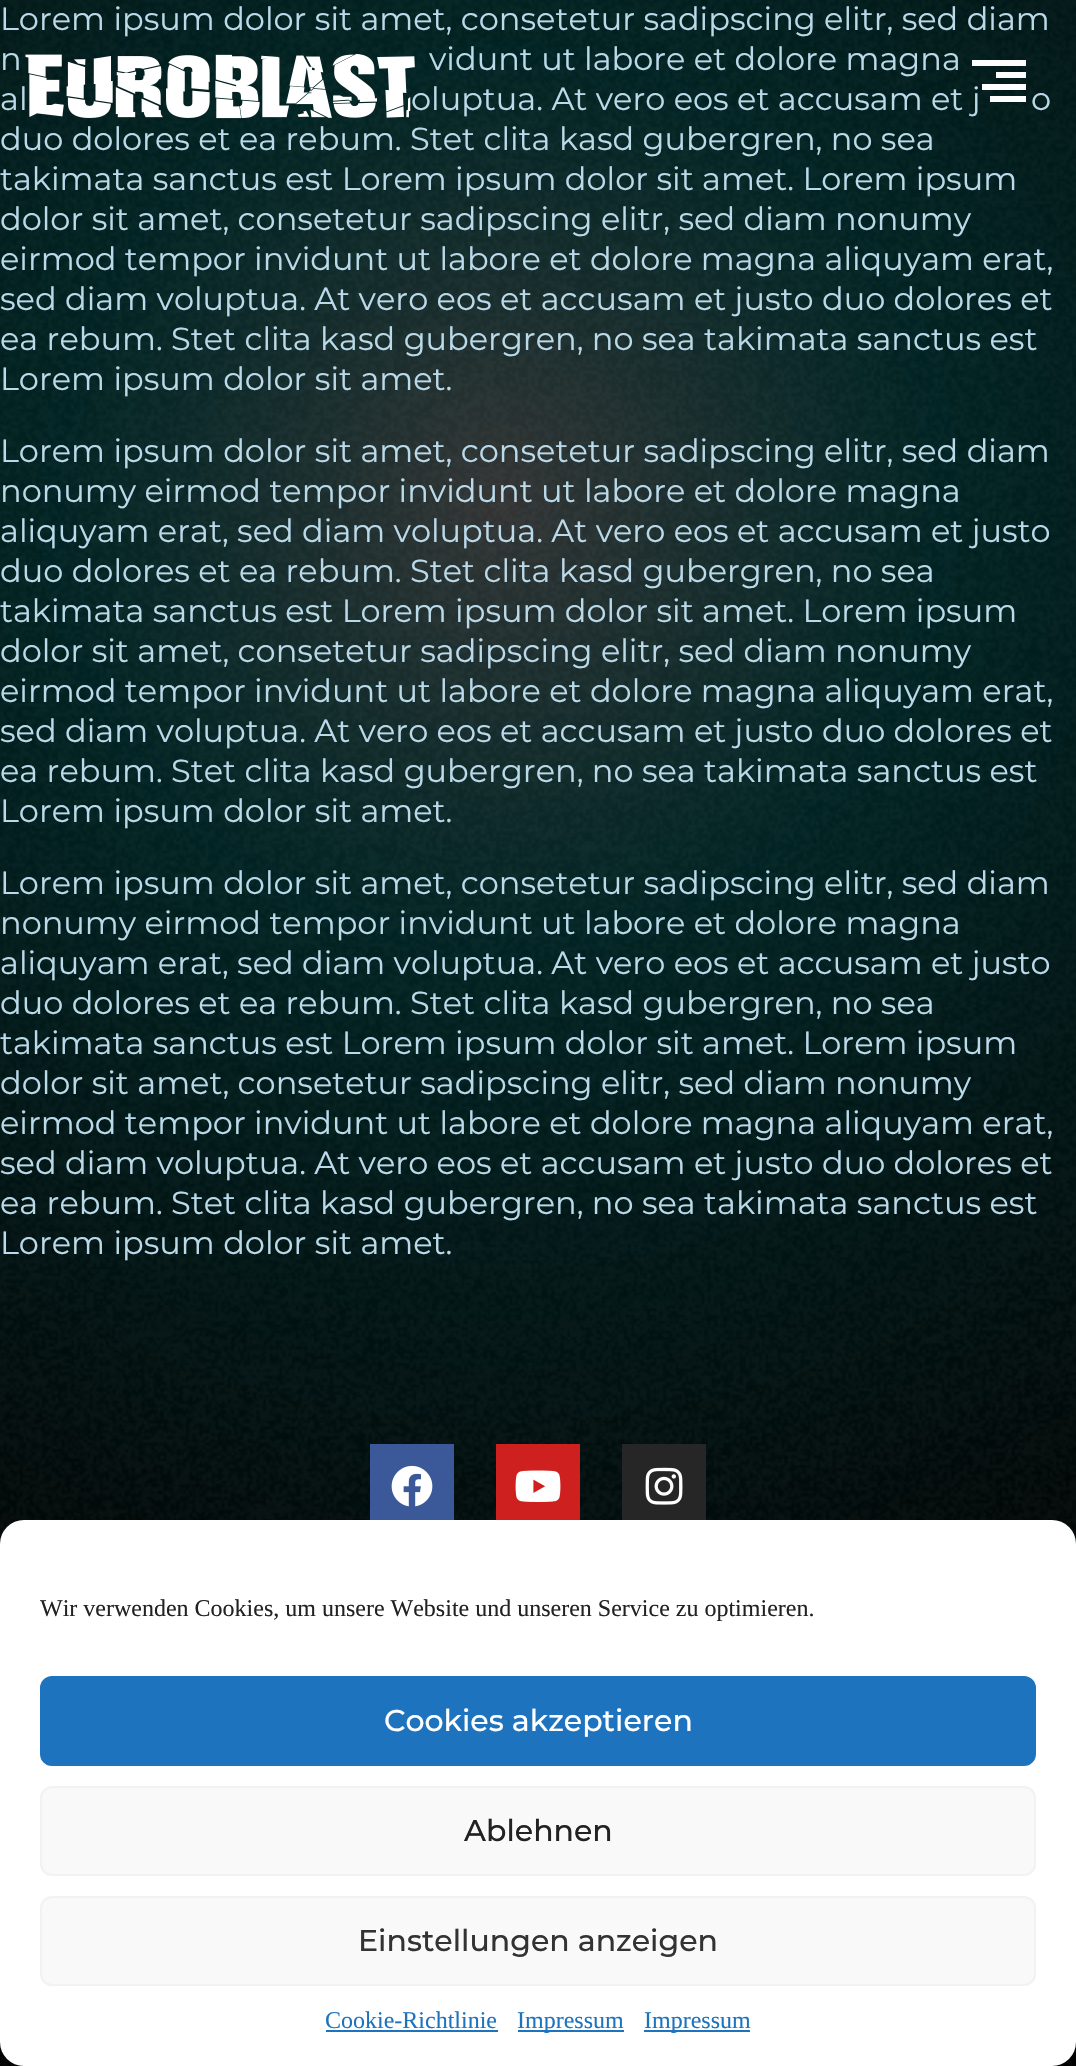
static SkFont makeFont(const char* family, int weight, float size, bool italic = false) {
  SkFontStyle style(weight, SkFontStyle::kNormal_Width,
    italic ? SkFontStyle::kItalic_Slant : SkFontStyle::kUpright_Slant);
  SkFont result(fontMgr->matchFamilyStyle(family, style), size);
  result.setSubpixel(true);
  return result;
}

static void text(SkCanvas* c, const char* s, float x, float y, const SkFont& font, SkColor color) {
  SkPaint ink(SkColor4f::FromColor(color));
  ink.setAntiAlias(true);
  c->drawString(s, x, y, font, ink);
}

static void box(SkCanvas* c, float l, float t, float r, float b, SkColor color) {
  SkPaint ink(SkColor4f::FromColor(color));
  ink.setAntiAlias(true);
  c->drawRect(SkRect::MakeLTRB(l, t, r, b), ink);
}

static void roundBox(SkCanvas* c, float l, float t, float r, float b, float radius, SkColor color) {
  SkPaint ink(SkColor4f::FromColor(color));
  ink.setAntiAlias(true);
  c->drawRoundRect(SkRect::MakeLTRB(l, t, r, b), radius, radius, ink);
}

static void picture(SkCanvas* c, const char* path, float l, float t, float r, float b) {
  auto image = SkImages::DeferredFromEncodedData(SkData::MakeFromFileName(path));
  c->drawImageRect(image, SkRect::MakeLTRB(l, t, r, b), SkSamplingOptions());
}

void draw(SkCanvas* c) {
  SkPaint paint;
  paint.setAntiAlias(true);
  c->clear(0xffffffff);
  picture(c, "img_01.png", 0, 0, 1076, 2066);
  SkFont face1 = makeFont("Montserrat", 400, 32);
  text(c, "Lorem ipsum dolor sit amet, consetetur sadipscing elitr, sed diam", 0, 30, face1, 0xffbad9e9);
  text(c, "n", 0, 70, face1, 0xffbad9e9);
  text(c, "vidunt ut labore et dolore magna", 429, 70, face1, 0xffbad9e9);
  text(c, "al", 0, 110, face1, 0xffbad9e9);
  text(c, "oluptua. At vero eos et accusam et j", 411, 110, face1, 0xffbad9e9);
  text(c, "o", 1031, 110, face1, 0xffbad9e9);
  text(c, "duo dolores et ea rebum. Stet clita kasd gubergren, no sea", 0, 150, face1, 0xffbad9e9);
  text(c, "takimata sanctus est Lorem ipsum dolor sit amet. Lorem ipsum", 0, 190, face1, 0xffbad9e9);
  text(c, "dolor sit amet, consetetur sadipscing elitr, sed diam nonumy", 0, 230, face1, 0xffbad9e9);
  text(c, "eirmod tempor invidunt ut labore et dolore magna aliquyam erat,", 0, 270, face1, 0xffbad9e9);
  text(c, "sed diam voluptua. At vero eos et accusam et justo duo dolores et", 0, 310, face1, 0xffbad9e9);
  text(c, "ea rebum. Stet clita kasd gubergren, no sea takimata sanctus est", 0, 350, face1, 0xffbad9e9);
  text(c, "Lorem ipsum dolor sit amet.", 0, 390, face1, 0xffbad9e9);
  text(c, "Lorem ipsum dolor sit amet, consetetur sadipscing elitr, sed diam", 0, 462, face1, 0xffbad9e9);
  text(c, "nonumy eirmod tempor invidunt ut labore et dolore magna", 0, 502, face1, 0xffbad9e9);
  text(c, "aliquyam erat, sed diam voluptua. At vero eos et accusam et justo", 0, 542, face1, 0xffbad9e9);
  text(c, "duo dolores et ea rebum. Stet clita kasd gubergren, no sea", 0, 582, face1, 0xffbad9e9);
  text(c, "takimata sanctus est Lorem ipsum dolor sit amet. Lorem ipsum", 0, 622, face1, 0xffbad9e9);
  text(c, "dolor sit amet, consetetur sadipscing elitr, sed diam nonumy", 0, 662, face1, 0xffbad9e9);
  text(c, "eirmod tempor invidunt ut labore et dolore magna aliquyam erat,", 0, 702, face1, 0xffbad9e9);
  text(c, "sed diam voluptua. At vero eos et accusam et justo duo dolores et", 0, 742, face1, 0xffbad9e9);
  text(c, "ea rebum. Stet clita kasd gubergren, no sea takimata sanctus est", 0, 782, face1, 0xffbad9e9);
  text(c, "Lorem ipsum dolor sit amet.", 0, 822, face1, 0xffbad9e9);
  text(c, "Lorem ipsum dolor sit amet, consetetur sadipscing elitr, sed diam", 0, 894, face1, 0xffbad9e9);
  text(c, "nonumy eirmod tempor invidunt ut labore et dolore magna", 0, 934, face1, 0xffbad9e9);
  text(c, "aliquyam erat, sed diam voluptua. At vero eos et accusam et justo", 0, 974, face1, 0xffbad9e9);
  text(c, "duo dolores et ea rebum. Stet clita kasd gubergren, no sea", 0, 1014, face1, 0xffbad9e9);
  text(c, "takimata sanctus est Lorem ipsum dolor sit amet. Lorem ipsum", 0, 1054, face1, 0xffbad9e9);
  text(c, "dolor sit amet, consetetur sadipscing elitr, sed diam nonumy", 0, 1094, face1, 0xffbad9e9);
  text(c, "eirmod tempor invidunt ut labore et dolore magna aliquyam erat,", 0, 1134, face1, 0xffbad9e9);
  text(c, "sed diam voluptua. At vero eos et accusam et justo duo dolores et", 0, 1174, face1, 0xffbad9e9);
  text(c, "ea rebum. Stet clita kasd gubergren, no sea takimata sanctus est", 0, 1214, face1, 0xffbad9e9);
  text(c, "Lorem ipsum dolor sit amet.", 0, 1254, face1, 0xffbad9e9);
  picture(c, "img_02.png", 25, 53, 415, 119);
  box(c, 972, 60, 1026, 66, 0xffffffff);
  box(c, 996, 72, 1026, 78, 0xffffffff);
  box(c, 982, 84, 1026, 90, 0xffffffff);
  box(c, 990, 96, 1026, 102, 0xffffffff);
  box(c, 370, 1444, 454, 1520, 0xff3b5998);
  picture(c, "img_03.png", 391, 1465, 433, 1507);
  box(c, 496, 1444, 580, 1520, 0xffcd201f);
  picture(c, "img_04.png", 515, 1470, 561, 1502);
  box(c, 622, 1444, 706, 1520, 0xff262626);
  picture(c, "img_05.png", 645, 1467, 683, 1505);
  roundBox(c, 0, 1520, 1076, 2066, 24, 0xffffffff);
  SkFont face2 = makeFont("Liberation Serif", 400, 24);
  text(c, "Wir verwenden Cookies, um unsere Website und unseren Service zu optimieren.", 40, 1616, face2, 0xff222222);
  paint.setColor(0xff1e73be);
  c->drawRoundRect(SkRect::MakeLTRB(41, 1677, 1035, 1765), 11, 11, paint);
  paint.setStyle(SkPaint::kStroke_Style);
  paint.setStrokeWidth(2);
  c->drawRoundRect(SkRect::MakeLTRB(41, 1677, 1035, 1765), 11, 11, paint);
  SkFont face3 = makeFont("Montserrat", 500, 30);
  text(c, "Cookies akzeptieren", 384, 1731, face3, 0xffffffff);
  paint.setStyle(SkPaint::kFill_Style);
  paint.setColor(0xfff9f9f9);
  c->drawRoundRect(SkRect::MakeLTRB(41, 1787, 1035, 1875), 11, 11, paint);
  paint.setStyle(SkPaint::kStroke_Style);
  paint.setColor(0xfff2f2f2);
  c->drawRoundRect(SkRect::MakeLTRB(41, 1787, 1035, 1875), 11, 11, paint);
  text(c, "Ablehnen", 464, 1841, face3, 0xff222222);
  paint.setStyle(SkPaint::kFill_Style);
  paint.setColor(0xfff9f9f9);
  c->drawRoundRect(SkRect::MakeLTRB(41, 1897, 1035, 1985), 11, 11, paint);
  paint.setStyle(SkPaint::kStroke_Style);
  paint.setColor(0xfff2f2f2);
  c->drawRoundRect(SkRect::MakeLTRB(41, 1897, 1035, 1985), 11, 11, paint);
  text(c, "Einstellungen anzeigen", 358, 1951, face3, 0xff333333);
  text(c, "Cookie-Richtlinie", 325, 2028, face2, 0xff1e73be);
  box(c, 326, 2030, 498, 2032, 0xff1e73be);
  box(c, 518, 2030, 624, 2032, 0xff1e73be);
  text(c, "Impressum", 517, 2028, face2, 0xff1e73be);
  box(c, 644, 2030, 750, 2032, 0xff1e73be);
  text(c, "Impressum", 644, 2028, face2, 0xff1e73be);
}
